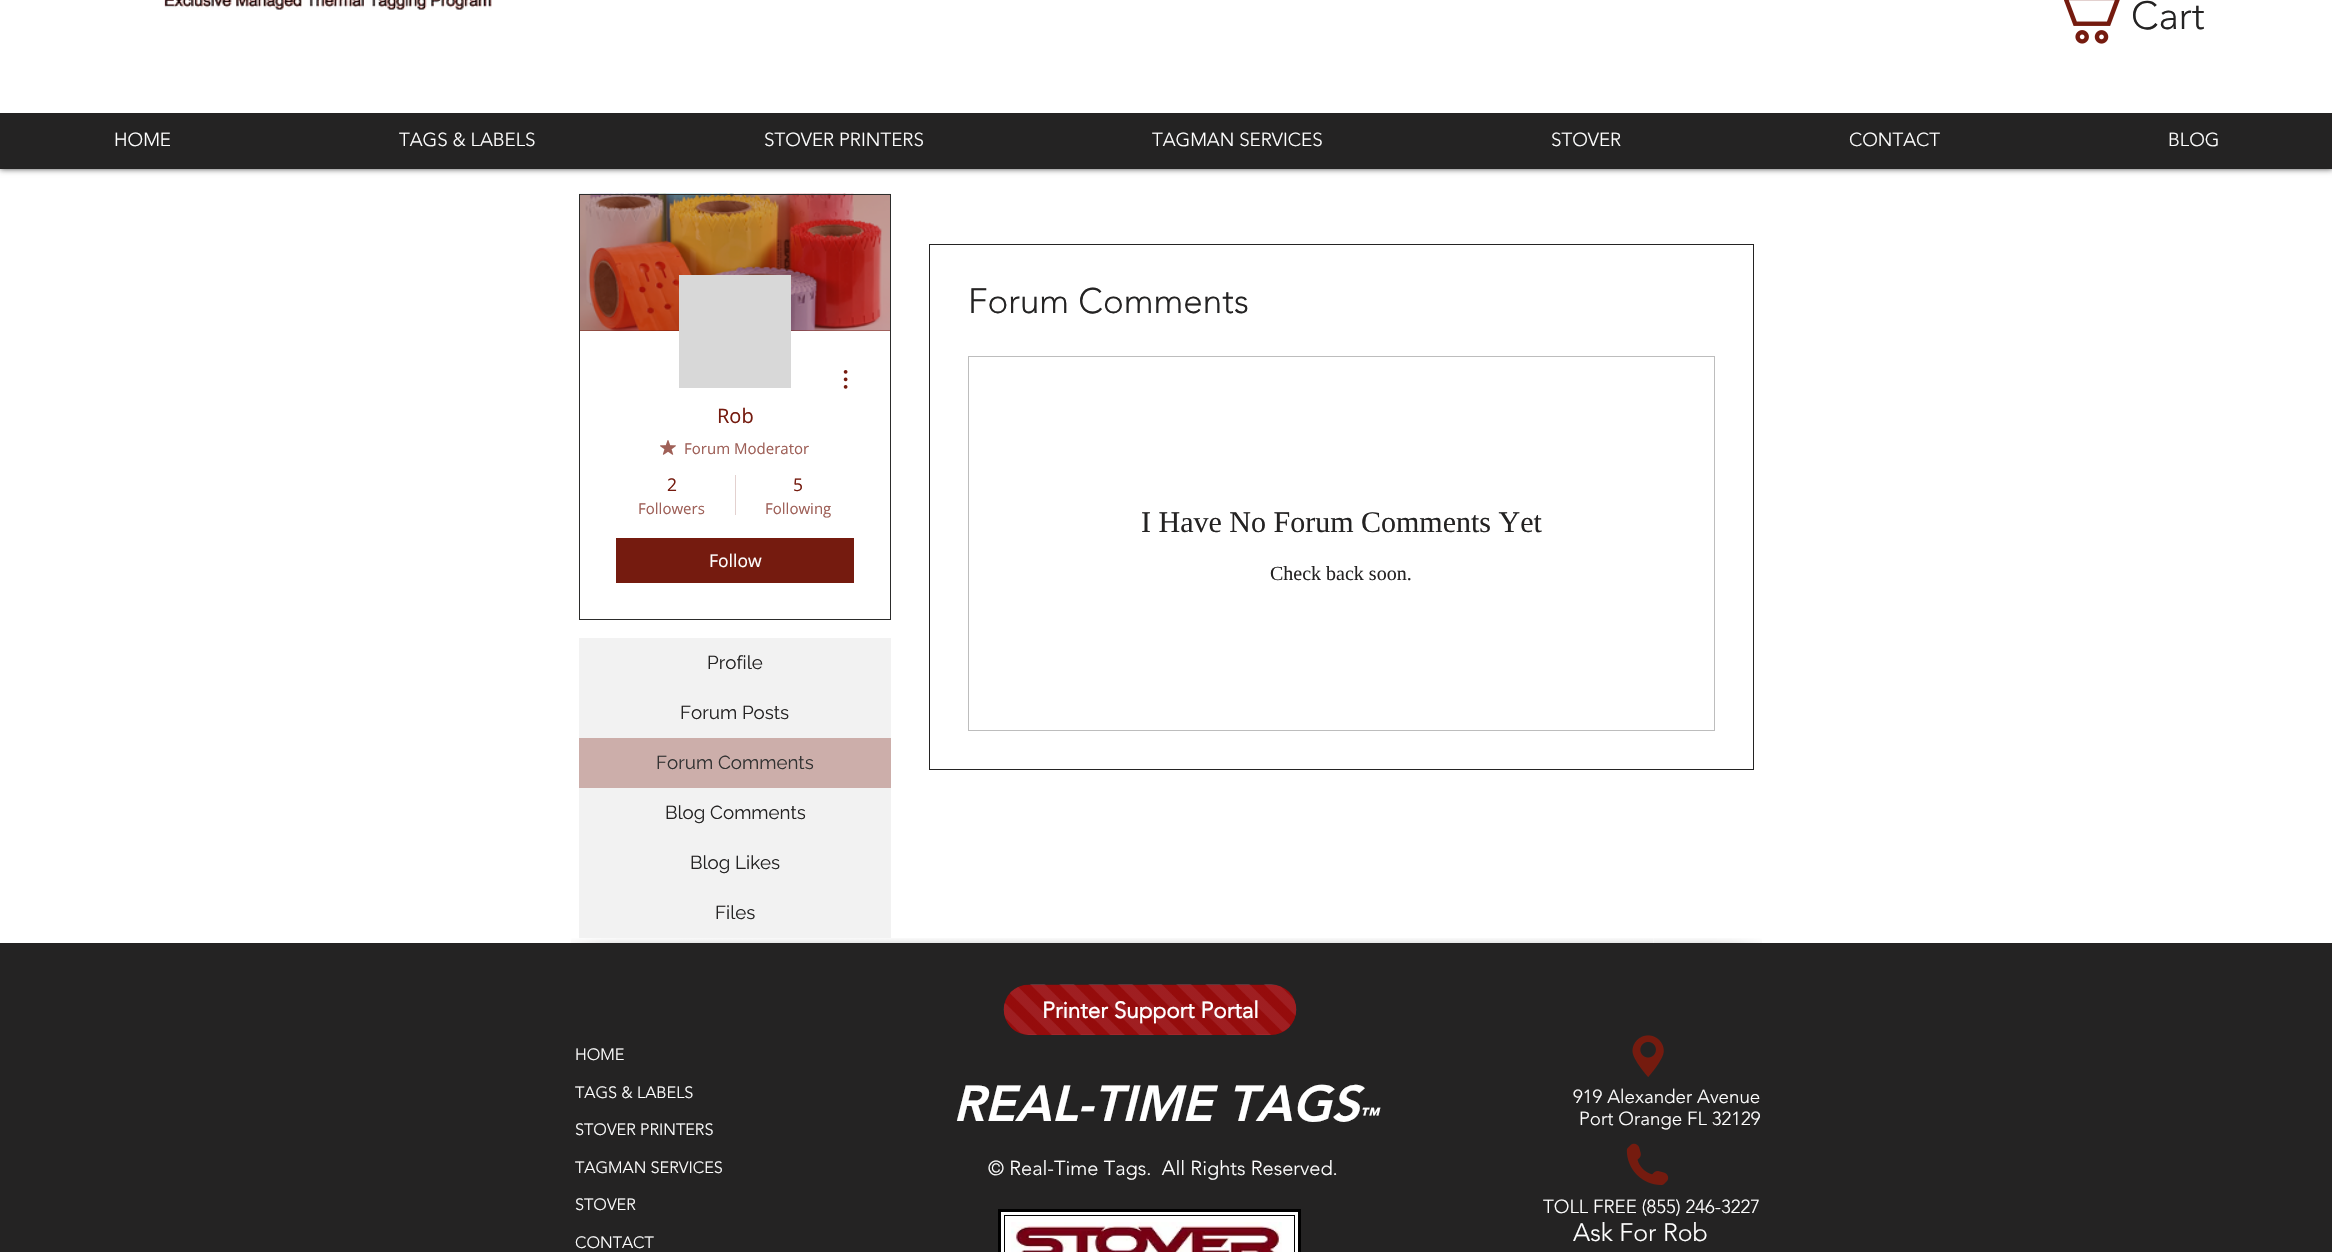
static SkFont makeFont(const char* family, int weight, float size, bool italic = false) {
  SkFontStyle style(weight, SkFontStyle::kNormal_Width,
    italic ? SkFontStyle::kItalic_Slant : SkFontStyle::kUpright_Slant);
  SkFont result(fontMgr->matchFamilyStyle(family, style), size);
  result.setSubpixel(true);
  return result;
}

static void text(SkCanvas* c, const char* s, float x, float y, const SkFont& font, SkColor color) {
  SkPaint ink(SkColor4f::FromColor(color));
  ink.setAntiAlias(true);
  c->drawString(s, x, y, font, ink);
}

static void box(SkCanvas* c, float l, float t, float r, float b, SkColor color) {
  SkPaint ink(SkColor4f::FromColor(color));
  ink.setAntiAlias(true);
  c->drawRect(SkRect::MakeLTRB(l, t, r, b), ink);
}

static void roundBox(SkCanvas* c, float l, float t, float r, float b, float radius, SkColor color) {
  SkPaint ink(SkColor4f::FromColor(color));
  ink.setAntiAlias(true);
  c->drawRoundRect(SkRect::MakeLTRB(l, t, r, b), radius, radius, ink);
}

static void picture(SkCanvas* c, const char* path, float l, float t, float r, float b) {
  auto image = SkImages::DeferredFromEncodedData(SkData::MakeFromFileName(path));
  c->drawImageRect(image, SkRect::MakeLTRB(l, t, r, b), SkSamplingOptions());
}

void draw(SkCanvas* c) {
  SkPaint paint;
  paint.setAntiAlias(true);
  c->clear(0xffffffff);
  paint.setColor(0xb3000000);
  paint.setMaskFilter(SkMaskFilter::MakeBlur(kNormal_SkBlurStyle, 3));
  c->drawRect(SkRect::MakeLTRB(0, -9, 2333, 169), paint);
  paint.setMaskFilter(nullptr);
  box(c, 0, 0, 2332, 113, 0xffffffff);
  picture(c, "img_01.png", 164, 0, 492, 10);
  picture(c, "img_02.png", 2064, 0, 2120, 44);
  SkFont face1 = makeFont("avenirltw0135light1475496", 300, 39);
  text(c, "Cart", 2131, 29, face1, 0xff242323);
  box(c, 0, 113, 2332, 169, 0xff242323);
  SkFont face2 = makeFont("avenirltw0135light1475496", 300, 18.75f);
  text(c, "HOME", 114, 146, face2, 0xffffffff);
  text(c, "TAGS & LABELS", 399, 146, face2, 0xffffffff);
  text(c, "STOVER PRINTERS", 764, 146, face2, 0xffffffff);
  text(c, "TAGMAN SERVICES", 1152, 146, face2, 0xffffffff);
  text(c, "STOVER", 1551, 146, face2, 0xffffffff);
  text(c, "CONTACT", 1849, 146, face2, 0xffffffff);
  text(c, "BLOG", 2168, 146, face2, 0xffffffff);
  box(c, 580, 195, 890, 331, 0xff751b0f);
  picture(c, "img_03.png", 579, 193, 891, 331);
  paint.setStyle(SkPaint::kStroke_Style);
  paint.setStrokeWidth(1);
  paint.setColor(0xff2c2c2b);
  c->drawRect(SkRect::MakeLTRB(579.5f, 194.5f, 890.5f, 619.5f), paint);
  box(c, 679, 275, 791, 388, 0xffd8d8d8);
  picture(c, "img_04.png", 843, 370, 848, 389);
  SkFont face3 = makeFont("Open Sans", 400, 20);
  text(c, "Rob", 717, 423, face3, 0xff751b0f);
  picture(c, "img_05.png", 660, 440, 676, 455);
  SkFont face4 = makeFont("Open Sans", 400, 15);
  text(c, "Forum Moderator", 684, 454, face4, 0xff9e5f57);
  SkFont face5 = makeFont("Open Sans", 400, 17.5f);
  text(c, "2", 667, 491, face5, 0xff751b0f);
  text(c, "Followers", 638, 514, face4, 0xff9e5f57);
  box(c, 735, 475, 736, 515, 0xffe3d1cf);
  text(c, "5", 793, 491, face5, 0xff751b0f);
  text(c, "Following", 765, 514, face4, 0xff9e5f57);
  box(c, 616, 538, 854, 583, 0xff751b0f);
  text(c, "Follow", 709, 567, face5, 0xffffffff);
  box(c, 579, 638, 891, 738, 0xfff2f2f2);
  SkFont face6 = makeFont("Raleway", 400, 18.75f);
  text(c, "Profile", 707, 669, face6, 0xff242323);
  text(c, "Forum Posts", 680, 719, face6, 0xff242323);
  box(c, 579, 738, 891, 788, 0xffccaeaa);
  text(c, "Forum Comments", 656, 769, face6, 0xff323232);
  box(c, 579, 788, 891, 938, 0xfff2f2f2);
  text(c, "Blog Comments", 665, 819, face6, 0xff242323);
  text(c, "Blog Likes", 690, 869, face6, 0xff242323);
  text(c, "Files", 715, 919, face6, 0xff242323);
  paint.setColor(0xff242323);
  c->drawRect(SkRect::MakeLTRB(929.5f, 244.5f, 1753.5f, 769.5f), paint);
  SkFont face7 = makeFont("avenirltw0135light1475496", 300, 35);
  text(c, "Forum Comments", 968, 313, face7, 0xff242323);
  paint.setColor(0xffbdbdbd);
  c->drawRect(SkRect::MakeLTRB(968.5f, 356.5f, 1714.5f, 730.5f), paint);
  SkFont face8 = makeFont("Liberation Serif", 400, 30);
  text(c, "I Have No Forum Comments Yet", 1141, 532, face8, 0xff242323);
  SkFont face9 = makeFont("Liberation Serif", 400, 20);
  text(c, "Check back soon.", 1270, 580, face9, 0xff242323);
  picture(c, "img_06.png", 571, 938, 679, 943);
  picture(c, "img_07.png", 678, 938, 1654, 943);
  picture(c, "img_08.png", 1654, 938, 1762, 943);
  box(c, 0, 943, 2332, 1252, 0xff242323);
  roundBox(c, 1004, 985, 1296, 1035, 25, 0xff950b0b);
  picture(c, "img_09.png", 1003, 984, 1297, 1035);
  SkFont face10 = makeFont("avenirltw0135light1475496", 700, 22.5f);
  text(c, "Printer Support Portal", 1042, 1018, face10, 0xffffffff);
  SkFont face11 = makeFont("avenirltw0135light1475496", 300, 16.25f);
  text(c, "HOME", 575, 1060, face11, 0xffffffff);
  text(c, "TAGS & LABELS", 575, 1098, face11, 0xffffffff);
  text(c, "STOVER PRINTERS", 575, 1135, face11, 0xffffffff);
  text(c, "TAGMAN SERVICES", 575, 1173, face11, 0xffffffff);
  text(c, "STOVER", 575, 1210, face11, 0xffffffff);
  text(c, "CONTACT", 575, 1248, face11, 0xffffffff);
  SkFont face12 = makeFont("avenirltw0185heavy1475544", 900, 50, true);
  text(c, "REAL-TIME TAGS", 953, 1121, face12, 0xffffffff);
  SkFont face13 = makeFont("avenirltw0185heavy1475544", 900, 18.75f, true);
  text(c, "™", 1359, 1121, face13, 0xffffffff);
  SkFont face14 = makeFont("avenirltw0135light1475496", 300, 20);
  text(c, "© Real-Time Tags.  All Rights Reserved.", 988, 1175, face14, 0xffffffff);
  paint.setStyle(SkPaint::kFill_Style);
  paint.setColor(0xffffffff);
  c->drawRect(SkRect::MakeLTRB(999.5f, 1210.5f, 1299.5f, 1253.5f), paint);
  paint.setStyle(SkPaint::kStroke_Style);
  paint.setStrokeWidth(3);
  paint.setColor(0xff000000);
  c->drawRect(SkRect::MakeLTRB(999.5f, 1210.5f, 1299.5f, 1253.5f), paint);
  picture(c, "img_10.png", 1011, 1222, 1282, 1252);
  paint.setStrokeWidth(1);
  c->drawRect(SkRect::MakeLTRB(1004.5f, 1215.5f, 1294.5f, 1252.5f), paint);
  picture(c, "img_11.png", 1632, 1035, 1664, 1077);
  text(c, "919 Alexander Avenue", 1573, 1103, face2, 0xffffffff);
  text(c, "Port Orange FL 32129", 1579, 1125, face2, 0xffffffff);
  picture(c, "img_12.png", 1626, 1143, 1669, 1185);
  text(c, "TOLL FREE (855) 246-3227", 1543, 1213, face2, 0xffffffff);
  SkFont face15 = makeFont("avenirltw0135light1475496", 300, 25);
  text(c, "Ask For Rob", 1573, 1241, face15, 0xffffffff);
}
